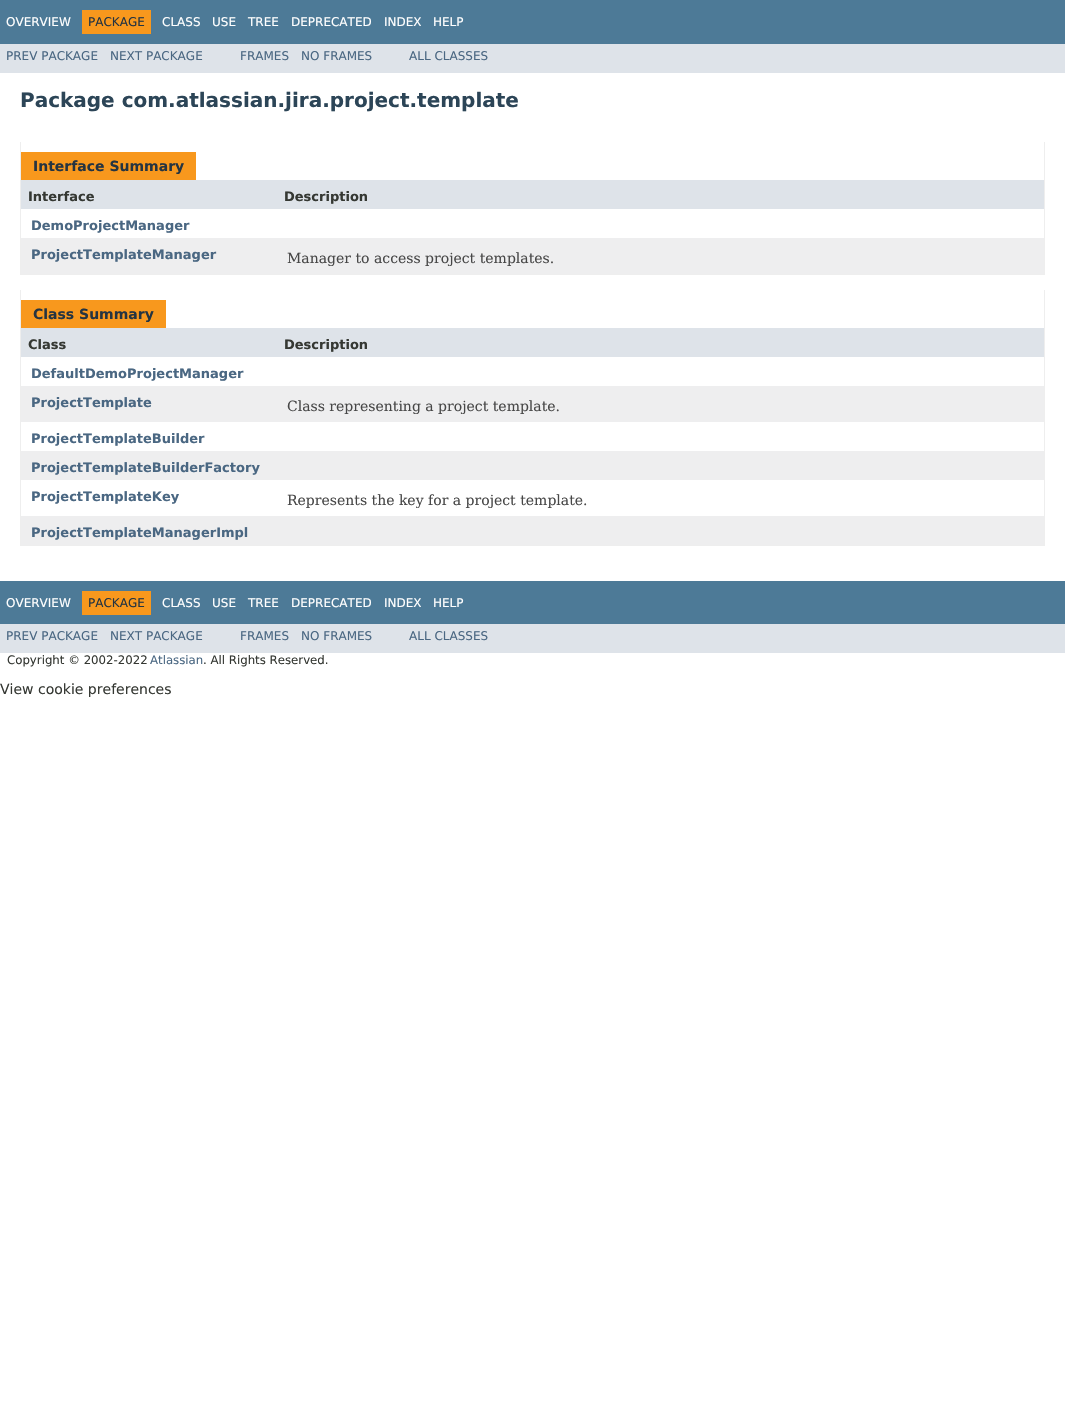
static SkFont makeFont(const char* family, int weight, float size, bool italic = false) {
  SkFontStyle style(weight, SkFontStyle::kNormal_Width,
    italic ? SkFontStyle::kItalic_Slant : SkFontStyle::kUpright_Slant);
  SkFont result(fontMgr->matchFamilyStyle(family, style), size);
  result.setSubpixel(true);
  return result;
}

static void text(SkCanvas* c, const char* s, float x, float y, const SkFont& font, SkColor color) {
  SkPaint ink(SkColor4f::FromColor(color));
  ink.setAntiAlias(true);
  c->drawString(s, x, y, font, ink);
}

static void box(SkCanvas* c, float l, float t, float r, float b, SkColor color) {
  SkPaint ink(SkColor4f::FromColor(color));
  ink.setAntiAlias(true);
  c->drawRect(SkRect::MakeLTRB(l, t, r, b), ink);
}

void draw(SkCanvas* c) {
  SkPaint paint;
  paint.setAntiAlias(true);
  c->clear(0xffffffff);
  box(c, 0, 0, 1065, 44, 0xff4d7a97);
  SkFont face1 = makeFont("DejaVu Sans", 400, 12);
  text(c, "OVERVIEW", 6, 26, face1, 0xffffffff);
  box(c, 82, 10, 151, 34, 0xfff8981d);
  text(c, "PACKAGE", 88, 26, face1, 0xff253441);
  text(c, "CLASS", 162, 26, face1, 0xffffffff);
  text(c, "USE", 212, 26, face1, 0xffffffff);
  text(c, "TREE", 248, 26, face1, 0xffffffff);
  text(c, "DEPRECATED", 291, 26, face1, 0xffffffff);
  text(c, "INDEX", 384, 26, face1, 0xffffffff);
  text(c, "HELP", 433, 26, face1, 0xffffffff);
  box(c, 0, 44, 1065, 73, 0xffdee3e9);
  text(c, "PREV PACKAGE", 6, 60, face1, 0xff4a6782);
  text(c, "NEXT PACKAGE", 110, 60, face1, 0xff4a6782);
  text(c, "FRAMES", 240, 60, face1, 0xff4a6782);
  text(c, "NO FRAMES", 301, 60, face1, 0xff4a6782);
  text(c, "ALL CLASSES", 409, 60, face1, 0xff4a6782);
  SkFont face2 = makeFont("DejaVu Sans", 700, 20);
  text(c, "Package com.atlassian.jira.project.template", 20, 107, face2, 0xff2c4557);
  box(c, 1044, 142, 1045, 275, 0xffeeeeee);
  box(c, 20, 274, 1045, 275, 0xffeeeeee);
  box(c, 20, 142, 21, 275, 0xffeeeeee);
  box(c, 21, 152, 196, 180, 0xfff8981d);
  SkFont face3 = makeFont("DejaVu Sans", 700, 14);
  text(c, "Interface Summary", 33, 171, face3, 0xff253441);
  box(c, 21, 180, 1044, 209, 0xffdee3e9);
  SkFont face4 = makeFont("DejaVu Sans", 700, 13);
  text(c, "Interface", 28, 201, face4, 0xff353833);
  text(c, "Description", 284, 201, face4, 0xff353833);
  text(c, "DemoProjectManager", 31, 230, face4, 0xff4a6782);
  box(c, 21, 238, 1044, 274, 0xffeeeeef);
  text(c, "ProjectTemplateManager", 31, 259, face4, 0xff4a6782);
  SkFont face5 = makeFont("DejaVu Serif", 400, 14);
  text(c, "Manager to access project templates.", 287, 263, face5, 0xff474747);
  box(c, 1044, 290, 1045, 546, 0xffeeeeee);
  box(c, 20, 545, 1045, 546, 0xffeeeeee);
  box(c, 20, 290, 21, 546, 0xffeeeeee);
  box(c, 21, 300, 166, 328, 0xfff8981d);
  text(c, "Class Summary", 33, 319, face3, 0xff253441);
  box(c, 21, 328, 1044, 357, 0xffdee3e9);
  text(c, "Class", 28, 349, face4, 0xff353833);
  text(c, "Description", 284, 349, face4, 0xff353833);
  text(c, "DefaultDemoProjectManager", 31, 378, face4, 0xff4a6782);
  box(c, 21, 386, 1044, 422, 0xffeeeeef);
  text(c, "ProjectTemplate", 31, 407, face4, 0xff4a6782);
  text(c, "Class representing a project template.", 287, 411, face5, 0xff474747);
  text(c, "ProjectTemplateBuilder", 31, 443, face4, 0xff4a6782);
  box(c, 21, 451, 1044, 480, 0xffeeeeef);
  text(c, "ProjectTemplateBuilderFactory", 31, 472, face4, 0xff4a6782);
  text(c, "ProjectTemplateKey", 31, 501, face4, 0xff4a6782);
  text(c, "Represents the key for a project template.", 287, 505, face5, 0xff474747);
  box(c, 21, 516, 1044, 545, 0xffeeeeef);
  text(c, "ProjectTemplateManagerImpl", 31, 537, face4, 0xff4a6782);
  box(c, 0, 581, 1065, 624, 0xff4d7a97);
  text(c, "OVERVIEW", 6, 607, face1, 0xffffffff);
  box(c, 82, 591, 151, 615, 0xfff8981d);
  text(c, "PACKAGE", 88, 607, face1, 0xff253441);
  text(c, "CLASS", 162, 607, face1, 0xffffffff);
  text(c, "USE", 212, 607, face1, 0xffffffff);
  text(c, "TREE", 248, 607, face1, 0xffffffff);
  text(c, "DEPRECATED", 291, 607, face1, 0xffffffff);
  text(c, "INDEX", 384, 607, face1, 0xffffffff);
  text(c, "HELP", 433, 607, face1, 0xffffffff);
  box(c, 0, 624, 1065, 653, 0xffdee3e9);
  text(c, "PREV PACKAGE", 6, 640, face1, 0xff4a6782);
  text(c, "NEXT PACKAGE", 110, 640, face1, 0xff4a6782);
  text(c, "FRAMES", 240, 640, face1, 0xff4a6782);
  text(c, "NO FRAMES", 301, 640, face1, 0xff4a6782);
  text(c, "ALL CLASSES", 409, 640, face1, 0xff4a6782);
  SkFont face6 = makeFont("DejaVu Sans", 400, 11.75f);
  text(c, "Copyright © 2002-2022", 7, 664, face6, 0xff353833);
  text(c, "Atlassian", 150, 664, face6, 0xff4a6782);
  text(c, ". All Rights Reserved.", 203, 664, face6, 0xff353833);
  SkFont face7 = makeFont("DejaVu Sans", 400, 14);
  text(c, "View cookie preferences", 0, 694, face7, 0xff353833);
}
